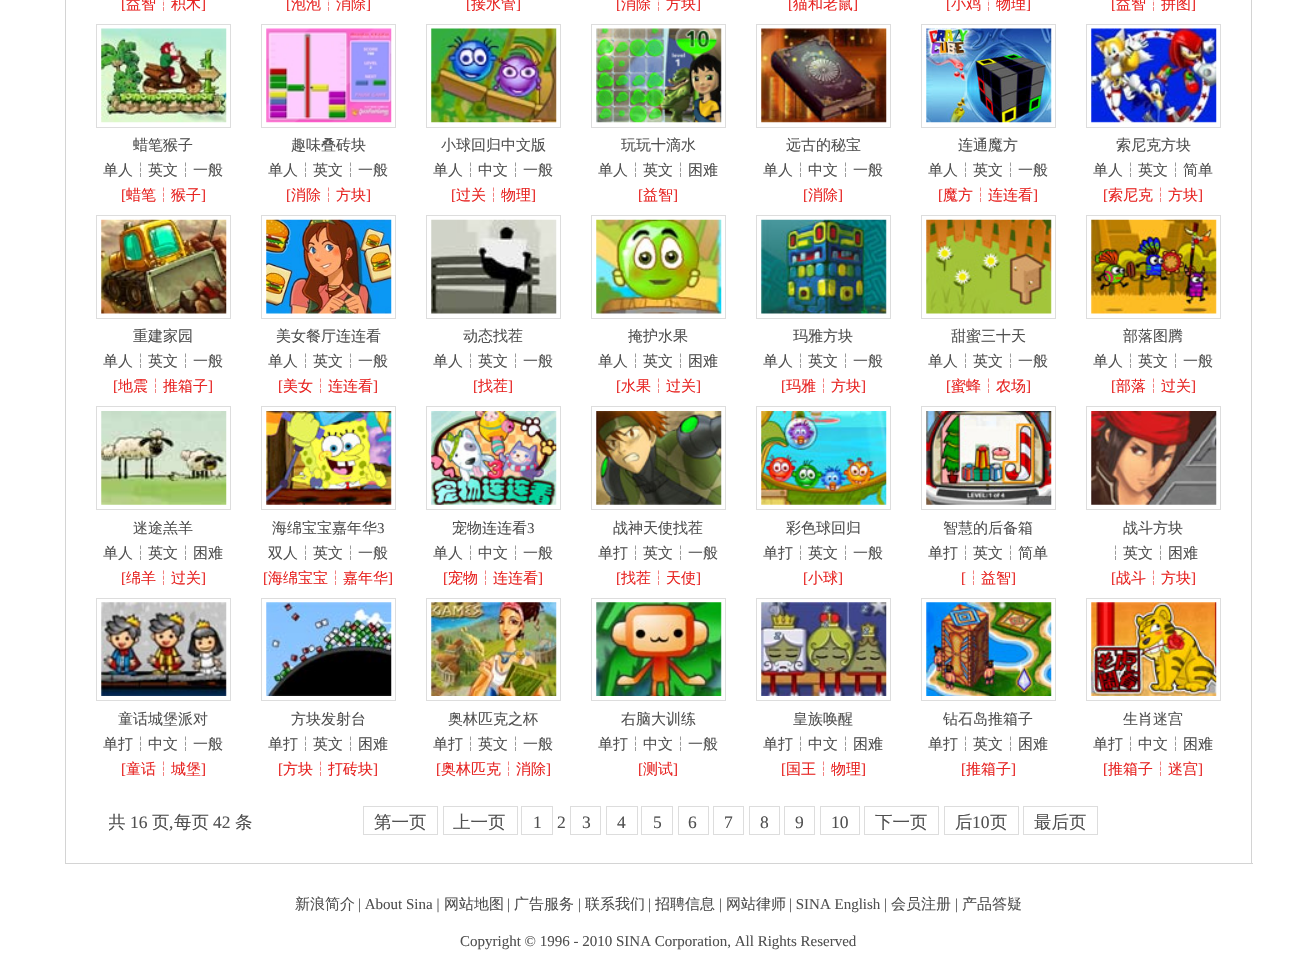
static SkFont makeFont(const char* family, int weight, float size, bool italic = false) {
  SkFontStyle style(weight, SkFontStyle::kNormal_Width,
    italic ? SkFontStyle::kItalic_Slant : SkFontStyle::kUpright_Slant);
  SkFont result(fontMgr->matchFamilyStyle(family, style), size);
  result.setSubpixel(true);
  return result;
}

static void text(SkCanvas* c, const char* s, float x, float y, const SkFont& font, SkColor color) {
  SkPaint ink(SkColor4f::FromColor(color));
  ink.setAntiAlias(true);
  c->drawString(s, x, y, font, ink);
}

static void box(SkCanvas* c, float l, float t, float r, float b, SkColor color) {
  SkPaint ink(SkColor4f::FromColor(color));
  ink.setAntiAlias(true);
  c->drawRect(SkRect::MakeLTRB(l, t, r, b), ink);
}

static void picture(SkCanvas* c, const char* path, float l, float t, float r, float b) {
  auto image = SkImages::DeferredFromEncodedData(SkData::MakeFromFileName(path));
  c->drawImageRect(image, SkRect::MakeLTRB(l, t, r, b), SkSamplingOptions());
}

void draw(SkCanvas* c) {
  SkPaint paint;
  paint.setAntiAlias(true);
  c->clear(0xffffffff);
  box(c, 1251, 0, 1252, 864, 0xffd4d4d4);
  box(c, 65, 863, 1253, 864, 0xffd4d4d4);
  box(c, 65, 0, 66, 864, 0xffd4d4d4);
  SkFont face1 = makeFont("Liberation Serif", 400, 15);
  text(c, "[", 121, 9, face1, 0xffe72422);
  SkFont face2 = makeFont("WenQuanYi Zen Hei", 500, 15);
  text(c, "益智┆积木", 126, 9, face2, 0xffe72422);
  text(c, "]", 201, 9, face1, 0xffe72422);
  text(c, "[", 286, 9, face1, 0xffe72422);
  text(c, "泡泡┆消除", 291, 9, face2, 0xffe72422);
  text(c, "]", 366, 9, face1, 0xffe72422);
  text(c, "[", 466, 9, face1, 0xffe72422);
  text(c, "接水管", 471, 9, face2, 0xffe72422);
  text(c, "]", 516, 9, face1, 0xffe72422);
  text(c, "[", 616, 9, face1, 0xffe72422);
  text(c, "消除┆方块", 621, 9, face2, 0xffe72422);
  text(c, "]", 696, 9, face1, 0xffe72422);
  text(c, "[", 788, 9, face1, 0xffe72422);
  text(c, "猫和老鼠", 793, 9, face2, 0xffe72422);
  text(c, "]", 853, 9, face1, 0xffe72422);
  text(c, "[", 946, 9, face1, 0xffe72422);
  text(c, "小鸡┆物理", 951, 9, face2, 0xffe72422);
  text(c, "]", 1026, 9, face1, 0xffe72422);
  text(c, "[", 1111, 9, face1, 0xffe72422);
  text(c, "益智┆拼图", 1116, 9, face2, 0xffe72422);
  text(c, "]", 1191, 9, face1, 0xffe72422);
  paint.setStyle(SkPaint::kStroke_Style);
  paint.setStrokeWidth(1);
  paint.setColor(0xffdddddd);
  c->drawRect(SkRect::MakeLTRB(96.5f, 24.5f, 230.5f, 127.5f), paint);
  picture(c, "img_01.png", 101, 28, 227, 123);
  text(c, "蜡笔猴子", 133, 150, face2, 0xff505050);
  text(c, "单人┆英文┆一般", 103, 175, face2, 0xff505050);
  text(c, "[", 121, 200, face1, 0xffe72422);
  text(c, "蜡笔┆猴子", 126, 200, face2, 0xffe72422);
  text(c, "]", 201, 200, face1, 0xffe72422);
  c->drawRect(SkRect::MakeLTRB(261.5f, 24.5f, 395.5f, 127.5f), paint);
  picture(c, "img_02.png", 266, 28, 392, 123);
  text(c, "趣味叠砖块", 291, 150, face2, 0xff505050);
  text(c, "单人┆英文┆一般", 268, 175, face2, 0xff505050);
  text(c, "[", 286, 200, face1, 0xffe72422);
  text(c, "消除┆方块", 291, 200, face2, 0xffe72422);
  text(c, "]", 366, 200, face1, 0xffe72422);
  c->drawRect(SkRect::MakeLTRB(426.5f, 24.5f, 560.5f, 127.5f), paint);
  picture(c, "img_03.png", 431, 28, 557, 123);
  text(c, "小球回归中文版", 441, 150, face2, 0xff505050);
  text(c, "单人┆中文┆一般", 433, 175, face2, 0xff505050);
  text(c, "[", 451, 200, face1, 0xffe72422);
  text(c, "过关┆物理", 456, 200, face2, 0xffe72422);
  text(c, "]", 531, 200, face1, 0xffe72422);
  c->drawRect(SkRect::MakeLTRB(591.5f, 24.5f, 725.5f, 127.5f), paint);
  picture(c, "img_04.png", 596, 28, 722, 123);
  text(c, "玩玩十滴水", 621, 150, face2, 0xff505050);
  text(c, "单人┆英文┆困难", 598, 175, face2, 0xff505050);
  text(c, "[", 638, 200, face1, 0xffe72422);
  text(c, "益智", 643, 200, face2, 0xffe72422);
  text(c, "]", 673, 200, face1, 0xffe72422);
  c->drawRect(SkRect::MakeLTRB(756.5f, 24.5f, 890.5f, 127.5f), paint);
  picture(c, "img_05.png", 761, 28, 887, 123);
  text(c, "远古的秘宝", 786, 150, face2, 0xff505050);
  text(c, "单人┆中文┆一般", 763, 175, face2, 0xff505050);
  text(c, "[", 803, 200, face1, 0xffe72422);
  text(c, "消除", 808, 200, face2, 0xffe72422);
  text(c, "]", 838, 200, face1, 0xffe72422);
  c->drawRect(SkRect::MakeLTRB(921.5f, 24.5f, 1055.5f, 127.5f), paint);
  picture(c, "img_06.png", 926, 28, 1052, 123);
  text(c, "连通魔方", 958, 150, face2, 0xff505050);
  text(c, "单人┆英文┆一般", 928, 175, face2, 0xff505050);
  text(c, "[", 938, 200, face1, 0xffe72422);
  text(c, "魔方┆连连看", 943, 200, face2, 0xffe72422);
  text(c, "]", 1033, 200, face1, 0xffe72422);
  c->drawRect(SkRect::MakeLTRB(1086.5f, 24.5f, 1220.5f, 127.5f), paint);
  picture(c, "img_07.png", 1091, 28, 1217, 123);
  text(c, "索尼克方块", 1116, 150, face2, 0xff505050);
  text(c, "单人┆英文┆简单", 1093, 175, face2, 0xff505050);
  text(c, "[", 1103, 200, face1, 0xffe72422);
  text(c, "索尼克┆方块", 1108, 200, face2, 0xffe72422);
  text(c, "]", 1198, 200, face1, 0xffe72422);
  c->drawRect(SkRect::MakeLTRB(96.5f, 215.5f, 230.5f, 318.5f), paint);
  picture(c, "img_08.png", 101, 219, 227, 314);
  text(c, "重建家园", 133, 341, face2, 0xff505050);
  text(c, "单人┆英文┆一般", 103, 366, face2, 0xff505050);
  text(c, "[", 113, 391, face1, 0xffe72422);
  text(c, "地震┆推箱子", 118, 391, face2, 0xffe72422);
  text(c, "]", 208, 391, face1, 0xffe72422);
  c->drawRect(SkRect::MakeLTRB(261.5f, 215.5f, 395.5f, 318.5f), paint);
  picture(c, "img_09.png", 266, 219, 392, 314);
  text(c, "美女餐厅连连看", 276, 341, face2, 0xff505050);
  text(c, "单人┆英文┆一般", 268, 366, face2, 0xff505050);
  text(c, "[", 278, 391, face1, 0xffe72422);
  text(c, "美女┆连连看", 283, 391, face2, 0xffe72422);
  text(c, "]", 373, 391, face1, 0xffe72422);
  c->drawRect(SkRect::MakeLTRB(426.5f, 215.5f, 560.5f, 318.5f), paint);
  picture(c, "img_10.png", 431, 219, 557, 314);
  text(c, "动态找茬", 463, 341, face2, 0xff505050);
  text(c, "单人┆英文┆一般", 433, 366, face2, 0xff505050);
  text(c, "[", 473, 391, face1, 0xffe72422);
  text(c, "找茬", 478, 391, face2, 0xffe72422);
  text(c, "]", 508, 391, face1, 0xffe72422);
  c->drawRect(SkRect::MakeLTRB(591.5f, 215.5f, 725.5f, 318.5f), paint);
  picture(c, "img_11.png", 596, 219, 722, 314);
  text(c, "掩护水果", 628, 341, face2, 0xff505050);
  text(c, "单人┆英文┆困难", 598, 366, face2, 0xff505050);
  text(c, "[", 616, 391, face1, 0xffe72422);
  text(c, "水果┆过关", 621, 391, face2, 0xffe72422);
  text(c, "]", 696, 391, face1, 0xffe72422);
  c->drawRect(SkRect::MakeLTRB(756.5f, 215.5f, 890.5f, 318.5f), paint);
  picture(c, "img_12.png", 761, 219, 887, 314);
  text(c, "玛雅方块", 793, 341, face2, 0xff505050);
  text(c, "单人┆英文┆一般", 763, 366, face2, 0xff505050);
  text(c, "[", 781, 391, face1, 0xffe72422);
  text(c, "玛雅┆方块", 786, 391, face2, 0xffe72422);
  text(c, "]", 861, 391, face1, 0xffe72422);
  c->drawRect(SkRect::MakeLTRB(921.5f, 215.5f, 1055.5f, 318.5f), paint);
  picture(c, "img_13.png", 926, 219, 1052, 314);
  text(c, "甜蜜三十天", 951, 341, face2, 0xff505050);
  text(c, "单人┆英文┆一般", 928, 366, face2, 0xff505050);
  text(c, "[", 946, 391, face1, 0xffe72422);
  text(c, "蜜蜂┆农场", 951, 391, face2, 0xffe72422);
  text(c, "]", 1026, 391, face1, 0xffe72422);
  c->drawRect(SkRect::MakeLTRB(1086.5f, 215.5f, 1220.5f, 318.5f), paint);
  picture(c, "img_14.png", 1091, 219, 1217, 314);
  text(c, "部落图腾", 1123, 341, face2, 0xff505050);
  text(c, "单人┆英文┆一般", 1093, 366, face2, 0xff505050);
  text(c, "[", 1111, 391, face1, 0xffe72422);
  text(c, "部落┆过关", 1116, 391, face2, 0xffe72422);
  text(c, "]", 1191, 391, face1, 0xffe72422);
  c->drawRect(SkRect::MakeLTRB(96.5f, 406.5f, 230.5f, 509.5f), paint);
  picture(c, "img_15.png", 101, 411, 227, 505);
  text(c, "迷途羔羊", 133, 533, face2, 0xff505050);
  text(c, "单人┆英文┆困难", 103, 558, face2, 0xff505050);
  text(c, "[", 121, 583, face1, 0xffe72422);
  text(c, "绵羊┆过关", 126, 583, face2, 0xffe72422);
  text(c, "]", 201, 583, face1, 0xffe72422);
  c->drawRect(SkRect::MakeLTRB(261.5f, 406.5f, 395.5f, 509.5f), paint);
  picture(c, "img_16.png", 266, 411, 392, 505);
  text(c, "海绵宝宝嘉年华", 272, 533, face2, 0xff505050);
  text(c, "3", 377, 533, face1, 0xff505050);
  text(c, "双人┆英文┆一般", 268, 558, face2, 0xff505050);
  text(c, "[", 263, 583, face1, 0xffe72422);
  text(c, "海绵宝宝┆嘉年华", 268, 583, face2, 0xffe72422);
  text(c, "]", 388, 583, face1, 0xffe72422);
  c->drawRect(SkRect::MakeLTRB(426.5f, 406.5f, 560.5f, 509.5f), paint);
  picture(c, "img_17.png", 431, 411, 557, 505);
  text(c, "宠物连连看", 452, 533, face2, 0xff505050);
  text(c, "3", 527, 533, face1, 0xff505050);
  text(c, "单人┆中文┆一般", 433, 558, face2, 0xff505050);
  text(c, "[", 443, 583, face1, 0xffe72422);
  text(c, "宠物┆连连看", 448, 583, face2, 0xffe72422);
  text(c, "]", 538, 583, face1, 0xffe72422);
  c->drawRect(SkRect::MakeLTRB(591.5f, 406.5f, 725.5f, 509.5f), paint);
  picture(c, "img_18.png", 596, 411, 722, 505);
  text(c, "战神天使找茬", 613, 533, face2, 0xff505050);
  text(c, "单打┆英文┆一般", 598, 558, face2, 0xff505050);
  text(c, "[", 616, 583, face1, 0xffe72422);
  text(c, "找茬┆天使", 621, 583, face2, 0xffe72422);
  text(c, "]", 696, 583, face1, 0xffe72422);
  c->drawRect(SkRect::MakeLTRB(756.5f, 406.5f, 890.5f, 509.5f), paint);
  picture(c, "img_19.png", 761, 411, 887, 505);
  text(c, "彩色球回归", 786, 533, face2, 0xff505050);
  text(c, "单打┆英文┆一般", 763, 558, face2, 0xff505050);
  text(c, "[", 803, 583, face1, 0xffe72422);
  text(c, "小球", 808, 583, face2, 0xffe72422);
  text(c, "]", 838, 583, face1, 0xffe72422);
  c->drawRect(SkRect::MakeLTRB(921.5f, 406.5f, 1055.5f, 509.5f), paint);
  picture(c, "img_20.png", 926, 411, 1052, 505);
  text(c, "智慧的后备箱", 943, 533, face2, 0xff505050);
  text(c, "单打┆英文┆简单", 928, 558, face2, 0xff505050);
  text(c, "[", 961, 583, face1, 0xffe72422);
  text(c, "┆益智", 966, 583, face2, 0xffe72422);
  text(c, "]", 1011, 583, face1, 0xffe72422);
  c->drawRect(SkRect::MakeLTRB(1086.5f, 406.5f, 1220.5f, 509.5f), paint);
  picture(c, "img_21.png", 1091, 411, 1217, 505);
  text(c, "战斗方块", 1123, 533, face2, 0xff505050);
  text(c, "┆英文┆困难", 1108, 558, face2, 0xff505050);
  text(c, "[", 1111, 583, face1, 0xffe72422);
  text(c, "战斗┆方块", 1116, 583, face2, 0xffe72422);
  text(c, "]", 1191, 583, face1, 0xffe72422);
  c->drawRect(SkRect::MakeLTRB(96.5f, 598.5f, 230.5f, 700.5f), paint);
  picture(c, "img_22.png", 101, 602, 227, 696);
  text(c, "童话城堡派对", 118, 724, face2, 0xff505050);
  text(c, "单打┆中文┆一般", 103, 749, face2, 0xff505050);
  text(c, "[", 121, 774, face1, 0xffe72422);
  text(c, "童话┆城堡", 126, 774, face2, 0xffe72422);
  text(c, "]", 201, 774, face1, 0xffe72422);
  c->drawRect(SkRect::MakeLTRB(261.5f, 598.5f, 395.5f, 700.5f), paint);
  picture(c, "img_23.png", 266, 602, 392, 696);
  text(c, "方块发射台", 291, 724, face2, 0xff505050);
  text(c, "单打┆英文┆困难", 268, 749, face2, 0xff505050);
  text(c, "[", 278, 774, face1, 0xffe72422);
  text(c, "方块┆打砖块", 283, 774, face2, 0xffe72422);
  text(c, "]", 373, 774, face1, 0xffe72422);
  c->drawRect(SkRect::MakeLTRB(426.5f, 598.5f, 560.5f, 700.5f), paint);
  picture(c, "img_24.png", 431, 602, 557, 696);
  text(c, "奥林匹克之杯", 448, 724, face2, 0xff505050);
  text(c, "单打┆英文┆一般", 433, 749, face2, 0xff505050);
  text(c, "[", 436, 774, face1, 0xffe72422);
  text(c, "奥林匹克┆消除", 441, 774, face2, 0xffe72422);
  text(c, "]", 546, 774, face1, 0xffe72422);
  c->drawRect(SkRect::MakeLTRB(591.5f, 598.5f, 725.5f, 700.5f), paint);
  picture(c, "img_25.png", 596, 602, 722, 696);
  text(c, "右脑大训练", 621, 724, face2, 0xff505050);
  text(c, "单打┆中文┆一般", 598, 749, face2, 0xff505050);
  text(c, "[", 638, 774, face1, 0xffe72422);
  text(c, "测试", 643, 774, face2, 0xffe72422);
  text(c, "]", 673, 774, face1, 0xffe72422);
  c->drawRect(SkRect::MakeLTRB(756.5f, 598.5f, 890.5f, 700.5f), paint);
  picture(c, "img_26.png", 761, 602, 887, 696);
  text(c, "皇族唤醒", 793, 724, face2, 0xff505050);
  text(c, "单打┆中文┆困难", 763, 749, face2, 0xff505050);
  text(c, "[", 781, 774, face1, 0xffe72422);
  text(c, "国王┆物理", 786, 774, face2, 0xffe72422);
  text(c, "]", 861, 774, face1, 0xffe72422);
  c->drawRect(SkRect::MakeLTRB(921.5f, 598.5f, 1055.5f, 700.5f), paint);
  picture(c, "img_27.png", 926, 602, 1052, 696);
  text(c, "钻石岛推箱子", 943, 724, face2, 0xff505050);
  text(c, "单打┆英文┆困难", 928, 749, face2, 0xff505050);
  text(c, "[", 961, 774, face1, 0xffe72422);
  text(c, "推箱子", 966, 774, face2, 0xffe72422);
  text(c, "]", 1011, 774, face1, 0xffe72422);
  c->drawRect(SkRect::MakeLTRB(1086.5f, 598.5f, 1220.5f, 700.5f), paint);
  picture(c, "img_28.png", 1091, 602, 1217, 696);
  text(c, "生肖迷宫", 1123, 724, face2, 0xff505050);
  text(c, "单打┆中文┆困难", 1093, 749, face2, 0xff505050);
  text(c, "[", 1103, 774, face1, 0xffe72422);
  text(c, "推箱子┆迷宫", 1108, 774, face2, 0xffe72422);
  text(c, "]", 1198, 774, face1, 0xffe72422);
  c->save();
  c->clipRect(SkRect::MakeLTRB(109, 781, 1209, 838));
  SkFont face3 = makeFont("WenQuanYi Zen Hei", 500, 17.5f);
  text(c, "共", 108, 828, face3, 0xff505050);
  c->restore();
  SkFont face4 = makeFont("Liberation Serif", 400, 17.5f);
  text(c, "16", 130, 828, face4, 0xff505050);
  text(c, "页", 152, 828, face3, 0xff505050);
  text(c, "每页", 174, 828, face3, 0xff505050);
  text(c, "42", 213, 828, face4, 0xff505050);
  text(c, "条", 235, 828, face3, 0xff505050);
  text(c, ",", 169, 828, face4, 0xff505050);
  c->drawRect(SkRect::MakeLTRB(363.5f, 806.5f, 437.5f, 834.5f), paint);
  text(c, "第一页", 374, 828, face3, 0xff505050);
  c->drawRect(SkRect::MakeLTRB(443.5f, 806.5f, 517.5f, 834.5f), paint);
  text(c, "上一页", 453, 828, face3, 0xff505050);
  c->drawRect(SkRect::MakeLTRB(521.5f, 806.5f, 552.5f, 834.5f), paint);
  text(c, "1", 533, 828, face4, 0xff505050);
  text(c, "2", 557, 828, face4, 0xff505050);
  c->drawRect(SkRect::MakeLTRB(570.5f, 806.5f, 600.5f, 834.5f), paint);
  text(c, "3", 582, 828, face4, 0xff505050);
  c->drawRect(SkRect::MakeLTRB(606.5f, 806.5f, 637.5f, 834.5f), paint);
  text(c, "4", 617, 828, face4, 0xff505050);
  c->drawRect(SkRect::MakeLTRB(641.5f, 806.5f, 672.5f, 834.5f), paint);
  text(c, "5", 653, 828, face4, 0xff505050);
  c->drawRect(SkRect::MakeLTRB(678.5f, 806.5f, 708.5f, 834.5f), paint);
  text(c, "6", 688, 828, face4, 0xff505050);
  c->drawRect(SkRect::MakeLTRB(713.5f, 806.5f, 743.5f, 834.5f), paint);
  text(c, "7", 724, 828, face4, 0xff505050);
  c->drawRect(SkRect::MakeLTRB(749.5f, 806.5f, 779.5f, 834.5f), paint);
  text(c, "8", 760, 828, face4, 0xff505050);
  c->drawRect(SkRect::MakeLTRB(784.5f, 806.5f, 814.5f, 834.5f), paint);
  text(c, "9", 795, 828, face4, 0xff505050);
  c->drawRect(SkRect::MakeLTRB(820.5f, 806.5f, 859.5f, 834.5f), paint);
  text(c, "10", 831, 828, face4, 0xff505050);
  c->drawRect(SkRect::MakeLTRB(864.5f, 806.5f, 938.5f, 834.5f), paint);
  text(c, "下一页", 875, 828, face3, 0xff505050);
  c->drawRect(SkRect::MakeLTRB(944.5f, 806.5f, 1018.5f, 834.5f), paint);
  text(c, "后", 955, 828, face3, 0xff505050);
  text(c, "10", 972, 828, face4, 0xff505050);
  text(c, "页", 990, 828, face3, 0xff505050);
  c->drawRect(SkRect::MakeLTRB(1023.5f, 806.5f, 1097.5f, 834.5f), paint);
  text(c, "最后页", 1034, 828, face3, 0xff505050);
  text(c, "新浪简介", 295, 909, face2, 0xff505050);
  text(c, "| About Sina |", 358, 909, face1, 0xff505050);
  text(c, "网站地图", 444, 909, face2, 0xff505050);
  text(c, "|", 507, 909, face1, 0xff505050);
  text(c, "广告服务", 514, 909, face2, 0xff505050);
  text(c, "|", 578, 909, face1, 0xff505050);
  text(c, "联系我们", 585, 909, face2, 0xff505050);
  text(c, "|", 648, 909, face1, 0xff505050);
  text(c, "招聘信息", 655, 909, face2, 0xff505050);
  text(c, "|", 719, 909, face1, 0xff505050);
  text(c, "网站律师", 726, 909, face2, 0xff505050);
  text(c, "| SINA English |", 789, 909, face1, 0xff505050);
  text(c, "会员注册", 891, 909, face2, 0xff505050);
  text(c, "|", 955, 909, face1, 0xff505050);
  text(c, "产品答疑", 962, 909, face2, 0xff505050);
  text(c, "Copyright © 1996 - 2010 SINA Corporation, All Rights Reserved", 460, 946, face1, 0xff505050);
}
